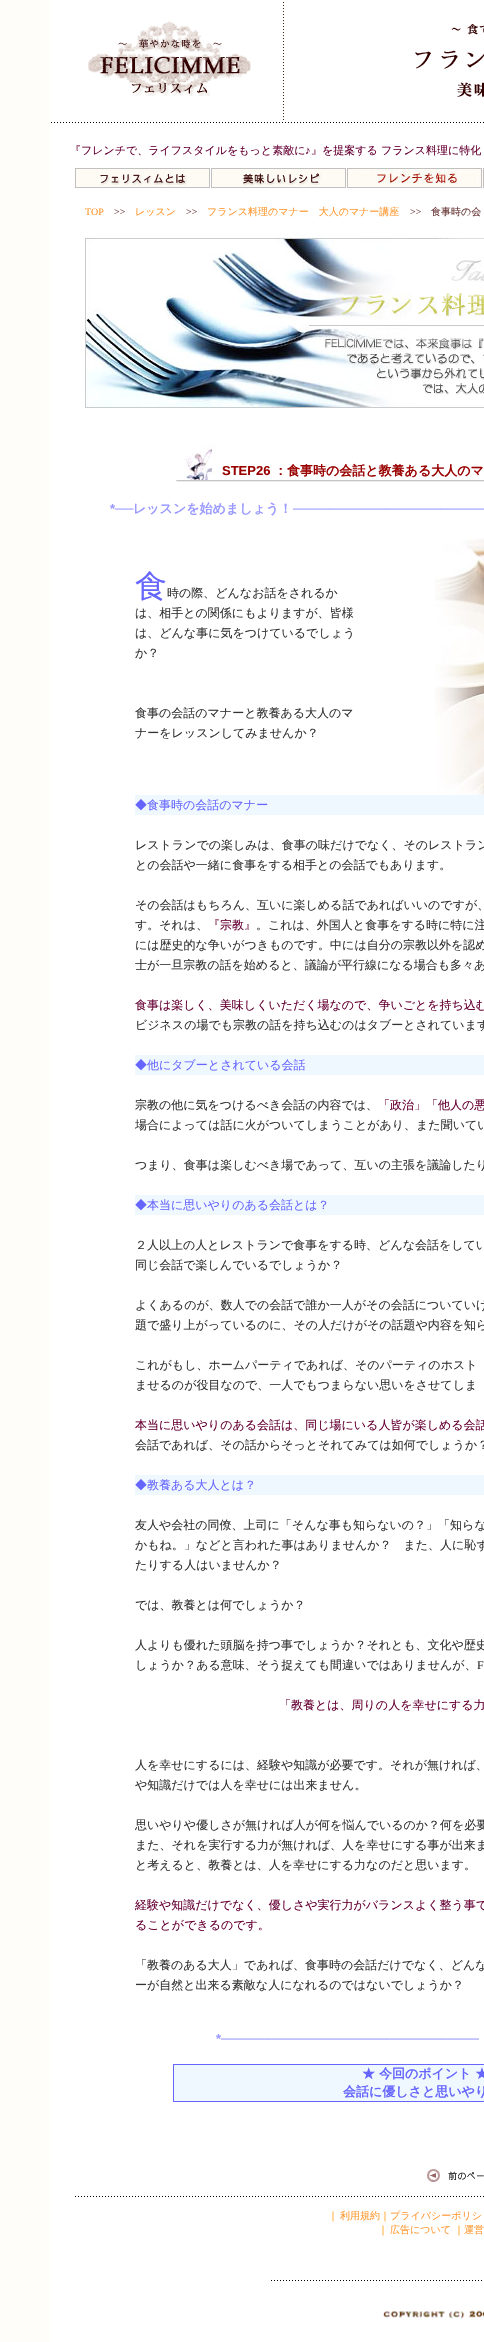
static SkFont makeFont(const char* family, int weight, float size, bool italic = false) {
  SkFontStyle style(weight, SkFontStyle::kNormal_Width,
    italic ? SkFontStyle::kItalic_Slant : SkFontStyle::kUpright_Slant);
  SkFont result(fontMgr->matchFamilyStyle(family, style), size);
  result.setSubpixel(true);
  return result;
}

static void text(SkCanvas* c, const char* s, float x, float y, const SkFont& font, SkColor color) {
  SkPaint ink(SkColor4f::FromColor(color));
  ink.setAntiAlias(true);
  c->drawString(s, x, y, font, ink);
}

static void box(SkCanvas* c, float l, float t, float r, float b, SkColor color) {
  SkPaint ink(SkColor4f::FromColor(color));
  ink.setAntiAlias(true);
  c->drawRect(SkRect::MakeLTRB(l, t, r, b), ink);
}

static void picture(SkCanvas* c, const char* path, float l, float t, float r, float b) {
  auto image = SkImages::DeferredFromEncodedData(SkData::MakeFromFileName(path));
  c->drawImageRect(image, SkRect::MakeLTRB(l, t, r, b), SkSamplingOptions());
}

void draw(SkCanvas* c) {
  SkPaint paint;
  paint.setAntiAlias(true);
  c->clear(0xffffffff);
  box(c, 0, 0, 50, 2342, 0xfffefdf9);
  picture(c, "img_01.png", 88, 21, 251, 96);
  picture(c, "img_02.png", 283, 2, 484, 120);
  picture(c, "img_03.png", 51, 122, 484, 123);
  SkFont face1 = makeFont("WenQuanYi Zen Hei", 500, 11);
  text(c, "『フレンチで、ライフスタイルをもっと素敵に", 70, 154, face1, 0xff660033);
  SkFont face2 = makeFont("Liberation Sans", 400, 11);
  text(c, "♪", 305, 154, face2, 0xff660033);
  text(c, "』を提案する フランス料理に特化", 311, 154, face1, 0xff660033);
  picture(c, "img_04.png", 74, 168, 210, 188);
  picture(c, "img_05.png", 211, 168, 346, 188);
  picture(c, "img_06.png", 346, 168, 482, 188);
  picture(c, "img_07.png", 482, 168, 484, 188);
  SkFont face3 = makeFont("Liberation Serif", 400, 10);
  text(c, "TOP", 85, 215, face3, 0xffff9933);
  text(c, ">>", 114, 215, face3, 0xff663333);
  SkFont face4 = makeFont("WenQuanYi Zen Hei", 500, 10);
  text(c, "レッスン", 135, 215, face4, 0xffff9933);
  text(c, ">>", 186, 215, face3, 0xff663333);
  text(c, "フランス料理のマナー　大人のマナー講座", 207, 215, face4, 0xffff9933);
  text(c, ">>", 410, 215, face3, 0xff663333);
  text(c, "食事時の会", 431, 215, face4, 0xff663333);
  picture(c, "img_08.png", 85, 237, 411, 408);
  picture(c, "img_09.png", 411, 238, 484, 408);
  picture(c, "img_10.png", 184, 444, 216, 480);
  SkFont face5 = makeFont("Liberation Sans", 700, 13);
  text(c, "STEP26", 222, 475, face5, 0xff990000);
  SkFont face6 = makeFont("WenQuanYi Zen Hei", 700, 13);
  text(c, "：食事時の会話と教養ある大人のマ", 274, 475, face6, 0xff990000);
  picture(c, "img_11.png", 176, 480, 484, 482);
  text(c, "*──", 110, 513, face5, 0xff9999ff);
  text(c, "レッスンを始めましょう！", 133, 513, face6, 0xff9999ff);
  text(c, "─────────────────────", 293, 513, face5, 0xff9999ff);
  SkFont face7 = makeFont("WenQuanYi Zen Hei", 500, 32);
  text(c, "食", 135, 597, face7, 0xff6666ff);
  SkFont face8 = makeFont("WenQuanYi Zen Hei", 500, 12);
  text(c, "時の際、どんなお話をされるか", 167, 597, face8, 0xff333333);
  text(c, "は、相手との関係にもよりますが、皆様", 135, 617, face8, 0xff333333);
  text(c, "は、どんな事に気をつけているでしょう", 135, 637, face8, 0xff333333);
  text(c, "か？", 135, 657, face8, 0xff333333);
  text(c, "食事の会話のマナーと教養ある大人のマ", 135, 717, face8, 0xff333333);
  text(c, "ナーをレッスンしてみませんか？", 135, 737, face8, 0xff333333);
  picture(c, "img_12.png", 435, 538, 484, 795);
  box(c, 135, 795, 484, 815, 0xfff0f8ff);
  text(c, "◆食事時の会話のマナー", 135, 809, face8, 0xff6666ff);
  text(c, "レストランでの楽しみは、食事の味だけでなく、そのレストラン", 135, 849, face8, 0xff333333);
  text(c, "との会話や一緒に食事をする相手との会話でもあります。", 135, 869, face8, 0xff333333);
  text(c, "その会話はもちろん、互いに楽しめる話であればいいのですが、", 135, 909, face8, 0xff333333);
  text(c, "す。それは、", 135, 929, face8, 0xff333333);
  text(c, "『宗教』", 208, 929, face8, 0xff660033);
  text(c, "。これは、外国人と食事をする時に特に注", 256, 929, face8, 0xff333333);
  text(c, "には歴史的な争いがつきものです。中には自分の宗教以外を認め", 135, 949, face8, 0xff333333);
  text(c, "士が一旦宗教の話を始めると、議論が平行線になる場合も多々あ", 135, 969, face8, 0xff333333);
  text(c, "食事は楽しく、美味しくいただく場なので、争いごとを持ち込む", 135, 1009, face8, 0xff660033);
  text(c, "ビジネスの場でも宗教の話を持ち込むのはタブーとされています", 135, 1029, face8, 0xff333333);
  box(c, 135, 1055, 484, 1075, 0xfff0f8ff);
  text(c, "◆他にタブーとされている会話", 135, 1069, face8, 0xff6666ff);
  text(c, "宗教の他に気をつけるべき会話の内容では、", 135, 1109, face8, 0xff333333);
  text(c, "「政治」「他人の悪", 378, 1109, face8, 0xff660033);
  text(c, "場合によっては話に火がついてしまうことがあり、また聞いてい", 135, 1129, face8, 0xff333333);
  text(c, "つまり、食事は楽しむべき場であって、互いの主張を議論したり", 135, 1169, face8, 0xff333333);
  box(c, 135, 1195, 484, 1215, 0xfff0f8ff);
  text(c, "◆本当に思いやりのある会話とは？", 135, 1209, face8, 0xff6666ff);
  text(c, "２人以上の人とレストランで食事をする時、どんな会話をしてい", 135, 1249, face8, 0xff333333);
  text(c, "同じ会話で楽しんでいるでしょうか？", 135, 1269, face8, 0xff333333);
  text(c, "よくあるのが、数人での会話で誰か一人がその会話についていけ", 135, 1309, face8, 0xff333333);
  text(c, "題で盛り上がっているのに、その人だけがその話題や内容を知ら", 135, 1329, face8, 0xff333333);
  text(c, "これがもし、ホームパーティであれば、そのパーティのホスト", 135, 1369, face8, 0xff333333);
  text(c, "ませるのが役目なので、一人でもつまらない思いをさせてしま", 135, 1389, face8, 0xff333333);
  text(c, "本当に思いやりのある会話は、同じ場にいる人皆が楽しめる会話", 135, 1429, face8, 0xff660033);
  text(c, "会話であれば、その話からそっとそれてみては如何でしょうか？", 135, 1449, face8, 0xff333333);
  box(c, 135, 1475, 484, 1495, 0xfff0f8ff);
  text(c, "◆教養ある大人とは？", 135, 1489, face8, 0xff6666ff);
  text(c, "友人や会社の同僚、上司に「そんな事も知らないの？」「知らな", 135, 1529, face8, 0xff333333);
  text(c, "かもね。」などと言われた事はありませんか？　また、人に恥ず", 135, 1549, face8, 0xff333333);
  text(c, "たりする人はいませんか？", 135, 1569, face8, 0xff333333);
  text(c, "では、教養とは何でしょうか？", 135, 1609, face8, 0xff333333);
  text(c, "人よりも優れた頭脳を持つ事でしょうか？それとも、文化や歴史", 135, 1649, face8, 0xff333333);
  text(c, "しょうか？ある意味、そう捉えても間違いではありませんが、", 135, 1669, face8, 0xff333333);
  SkFont face9 = makeFont("Liberation Serif", 400, 12);
  text(c, "F", 477, 1669, face9, 0xff333333);
  text(c, "「教養とは、周りの人を幸せにする力", 279, 1709, face8, 0xff660033);
  text(c, "人を幸せにするには、経験や知識が必要です。それが無ければ、", 135, 1769, face8, 0xff333333);
  text(c, "や知識だけでは人を幸せには出来ません。", 135, 1789, face8, 0xff333333);
  text(c, "思いやりや優しさが無ければ人が何を悩んでいるのか？何を必要", 135, 1829, face8, 0xff333333);
  text(c, "また、それを実行する力が無ければ、人を幸せにする事が出来ま", 135, 1849, face8, 0xff333333);
  text(c, "と考えると、教養とは、人を幸せにする力なのだと思います。", 135, 1869, face8, 0xff333333);
  text(c, "経験や知識だけでなく、優しさや実行力がバランスよく整う事で", 135, 1909, face8, 0xff660033);
  text(c, "ることができるのです。", 135, 1929, face8, 0xff660033);
  text(c, "「教養のある大人」であれば、食事時の会話だけでなく、どんな", 135, 1969, face8, 0xff333333);
  text(c, "ーが自然と出来る素敵な人になれるのではないでしょうか？", 135, 1989, face8, 0xff333333);
  text(c, "*────────────────────────────", 216, 2043, face5, 0xff9999ff);
  box(c, 173, 2064, 484, 2065, 0xff6666ff);
  box(c, 173, 2101, 484, 2102, 0xff6666ff);
  box(c, 173, 2064, 174, 2102, 0xff6666ff);
  box(c, 174, 2065, 484, 2101, 0xfff0f8ff);
  text(c, "★ 今回のポイント ★", 362, 2078, face6, 0xff6666ff);
  text(c, "会話に優しさと思いやり", 343, 2096, face6, 0xff6666ff);
  picture(c, "img_13.png", 427, 2169, 484, 2182);
  picture(c, "img_14.png", 75, 2196, 484, 2197);
  text(c, "｜", 328, 2219, face4, 0xffff9900);
  text(c, "利用規約", 340, 2219, face4, 0xffff9933);
  text(c, "｜", 380, 2219, face4, 0xffff9900);
  text(c, "プライバシーポリシ", 390, 2219, face4, 0xffff9933);
  text(c, "｜", 378, 2233, face4, 0xffff9900);
  text(c, "広告について", 390, 2233, face4, 0xffff9933);
  text(c, "｜", 454, 2233, face4, 0xffff9900);
  text(c, "運営", 464, 2233, face4, 0xffff9933);
  picture(c, "img_15.png", 271, 2280, 482, 2281);
  picture(c, "img_16.png", 383, 2310, 484, 2319);
}
